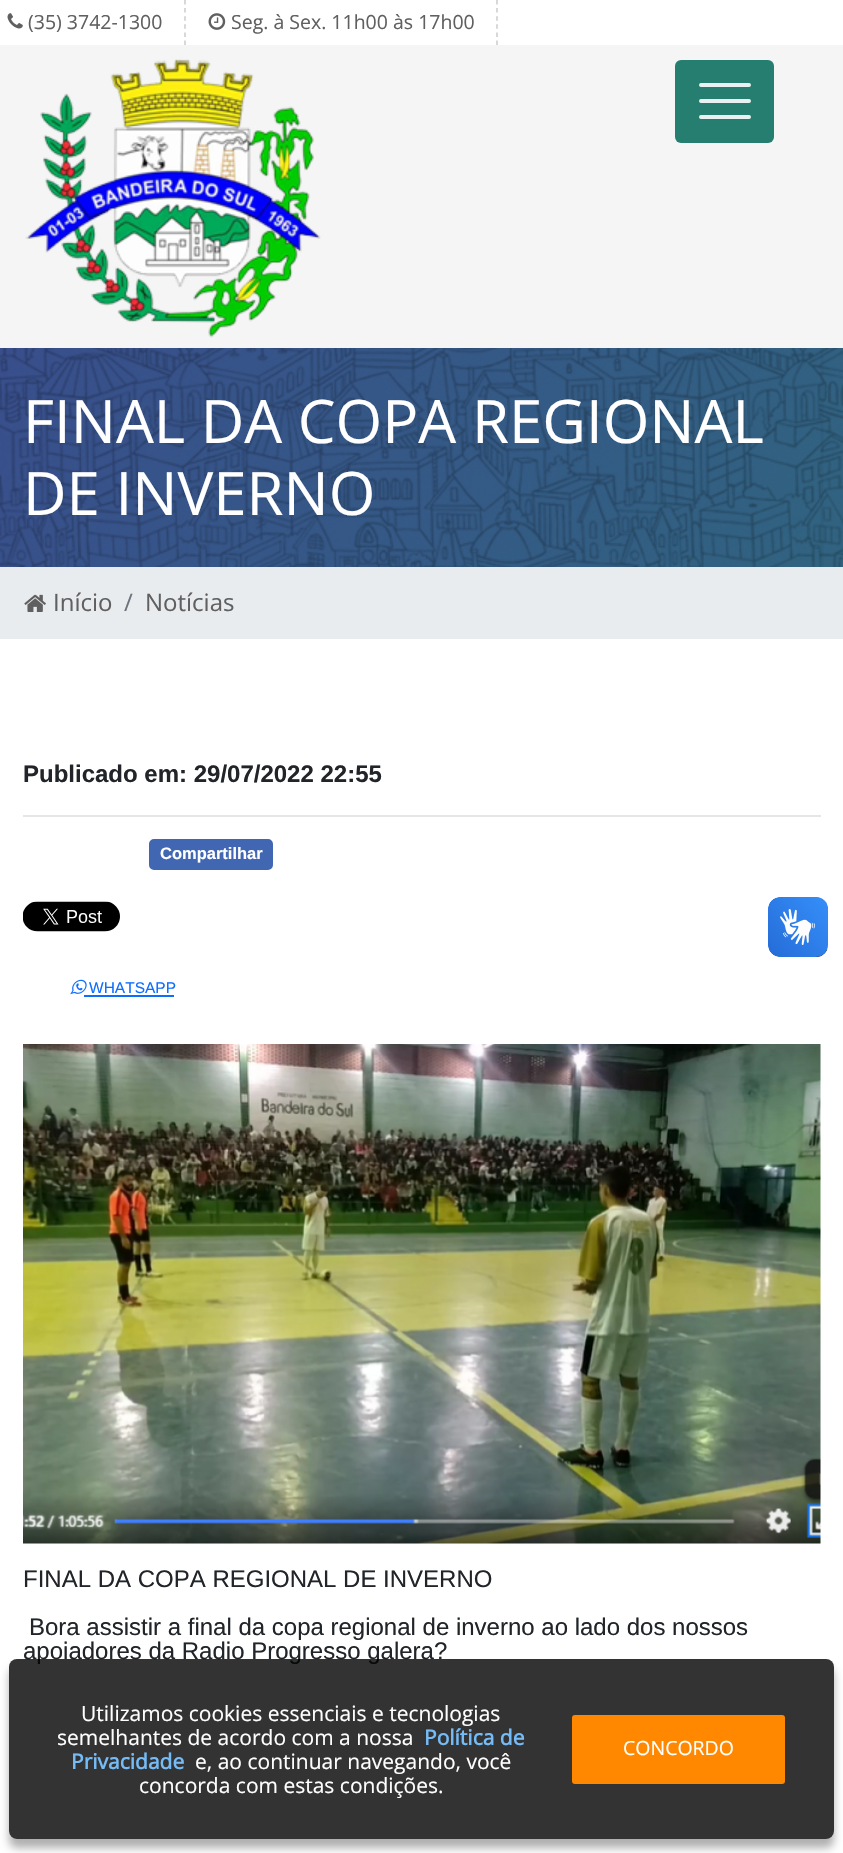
static SkFont makeFont(const char* family, int weight, float size, bool italic = false) {
  SkFontStyle style(weight, SkFontStyle::kNormal_Width,
    italic ? SkFontStyle::kItalic_Slant : SkFontStyle::kUpright_Slant);
  SkFont result(fontMgr->matchFamilyStyle(family, style), size);
  result.setSubpixel(true);
  return result;
}

static void text(SkCanvas* c, const char* s, float x, float y, const SkFont& font, SkColor color) {
  SkPaint ink(SkColor4f::FromColor(color));
  ink.setAntiAlias(true);
  c->drawString(s, x, y, font, ink);
}

static void box(SkCanvas* c, float l, float t, float r, float b, SkColor color) {
  SkPaint ink(SkColor4f::FromColor(color));
  ink.setAntiAlias(true);
  c->drawRect(SkRect::MakeLTRB(l, t, r, b), ink);
}

static void roundBox(SkCanvas* c, float l, float t, float r, float b, float radius, SkColor color) {
  SkPaint ink(SkColor4f::FromColor(color));
  ink.setAntiAlias(true);
  c->drawRoundRect(SkRect::MakeLTRB(l, t, r, b), radius, radius, ink);
}

static void picture(SkCanvas* c, const char* path, float l, float t, float r, float b) {
  auto image = SkImages::DeferredFromEncodedData(SkData::MakeFromFileName(path));
  c->drawImageRect(image, SkRect::MakeLTRB(l, t, r, b), SkSamplingOptions());
}

void draw(SkCanvas* c) {
  SkPaint paint;
  paint.setAntiAlias(true);
  c->clear(0xffffffff);
  paint.setStyle(SkPaint::kStroke_Style);
  paint.setStrokeWidth(1.5f);
  paint.setColor(0xffcccccc);
  paint.setPathEffect(SkDashPathEffect::Make({{4.5f, 3.6f}}, 0));
  c->drawPath(SkPathBuilder().moveTo(185, 0).lineTo(185, 45).detach(), paint);
  paint.setPathEffect(nullptr);
  picture(c, "img_01.png", 7, 13, 23, 29);
  SkFont face1 = makeFont("Open Sans", 400, 19.5f);
  text(c, "(35) 3742-1300", 28, 29, face1, 0xff606060);
  paint.setPathEffect(SkDashPathEffect::Make({{4.5f, 3.6f}}, 0));
  c->drawPath(SkPathBuilder().moveTo(497, 0).lineTo(497, 45).detach(), paint);
  paint.setPathEffect(nullptr);
  picture(c, "img_02.png", 208, 13, 226, 30);
  text(c, "Seg. à Sex. 11h00 às 17h00", 231, 29, face1, 0xff606060);
  box(c, 0, 45, 843, 348, 0xfff5f5f5);
  picture(c, "img_03.png", 25, 59, 321, 338);
  roundBox(c, 675, 60, 774, 143, 6, 0xff267e70);
  paint.setStrokeWidth(4);
  paint.setStrokeCap(SkPaint::kRound_Cap);
  paint.setColor(0xffe9f2f1);
  c->drawPath(SkPathBuilder().moveTo(701, 85).lineTo(749, 85).moveTo(701, 101).lineTo(749, 101).moveTo(701, 117).lineTo(749, 117).detach(), paint);
  picture(c, "img_04.png", 0, 348, 843, 567);
  SkFont face2 = makeFont("Open Sans", 400, 60);
  text(c, "FINAL DA COPA REGIONAL", 23, 443, face2, 0xffffffff);
  text(c, "DE INVERNO", 23, 515, face2, 0xffffffff);
  box(c, 0, 567, 843, 639, 0xffe9ecef);
  picture(c, "img_05.png", 24, 594, 46, 612);
  SkFont face3 = makeFont("Open Sans", 400, 24);
  text(c, "Início", 53, 611, face3, 0xff606060);
  text(c, "/", 124, 611, face3, 0xff6c757d);
  text(c, "Notícias", 145, 611, face3, 0xff606060);
  SkFont face4 = makeFont("Liberation Sans", 700, 24);
  text(c, "Publicado em: 29/07/2022 22:55", 23, 782, face4, 0xff212529);
  box(c, 23, 815, 821, 817, 0xffe6e6e6);
  paint.setStyle(SkPaint::kFill_Style);
  paint.setColor(0xff4267b2);
  c->drawRoundRect(SkRect::MakeLTRB(150, 840, 272, 869), 4, 4, paint);
  paint.setStyle(SkPaint::kStroke_Style);
  paint.setStrokeWidth(2);
  paint.setStrokeCap(SkPaint::kButt_Cap);
  c->drawRoundRect(SkRect::MakeLTRB(150, 840, 272, 869), 4, 4, paint);
  SkFont face5 = makeFont("Liberation Sans", 700, 16.5f);
  text(c, "Compartilhar", 160, 859, face5, 0xffffffff);
  picture(c, "img_06.png", 23, 901, 120, 932);
  picture(c, "img_07.png", 70, 979, 87, 995);
  SkFont face6 = makeFont("Liberation Sans", 400, 15.5f);
  text(c, "WHATSAPP", 89, 993, face6, 0xff0d6efd);
  box(c, 84, 995, 174, 997, 0xff0d6efd);
  picture(c, "img_08.png", 23, 1044, 821, 1544);
  SkFont face7 = makeFont("Liberation Sans", 400, 24);
  text(c, "FINAL DA COPA REGIONAL DE INVERNO", 23, 1587, face7, 0xff212529);
  text(c, "Bora assistir a final da copa regional de inverno ao lado dos nossos", 29, 1635, face7, 0xff212529);
  text(c, "apoiadores da Radio Progresso galera?", 23, 1659, face7, 0xff212529);
  picture(c, "img_09.png", 768, 897, 828, 957);
  picture(c, "img_10.png", 768, 897, 828, 957);
  c->save();
  c->clipPath(SkPathBuilder(SkPathFillType::kEvenOdd).moveTo(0, 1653).lineTo(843, 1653).lineTo(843, 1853).lineTo(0, 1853).close().moveTo(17, 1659).lineTo(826, 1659).cubicTo(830.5f, 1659, 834, 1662.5f, 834, 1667).lineTo(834, 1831).cubicTo(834, 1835.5f, 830.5f, 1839, 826, 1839).lineTo(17, 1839).cubicTo(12.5f, 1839, 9, 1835.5f, 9, 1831).lineTo(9, 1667).cubicTo(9, 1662.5f, 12.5f, 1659, 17, 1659).close().detach(), true);
  paint.setStyle(SkPaint::kFill_Style);
  paint.setColor(0x4f000000);
  paint.setMaskFilter(SkMaskFilter::MakeBlur(kNormal_SkBlurStyle, 4.5f));
  c->drawRoundRect(SkRect::MakeLTRB(9, 1668, 834, 1848), 8, 8, paint);
  paint.setMaskFilter(nullptr);
  c->restore();
  roundBox(c, 9, 1659, 834, 1839, 8, 0xcc000000);
  SkFont face8 = makeFont("Open Sans", 400, 21);
  text(c, "Utilizamos cookies essenciais e tecnologias", 81, 1721, face8, 0xffffffff);
  text(c, "semelhantes de acordo com a nossa", 57, 1745, face8, 0xffffffff);
  SkFont face9 = makeFont("Open Sans", 700, 21);
  text(c, "Política de", 424, 1745, face9, 0xff74bbf7);
  text(c, "Privacidade", 71, 1769, face9, 0xff74bbf7);
  text(c, "e, ao continuar navegando, você", 195, 1769, face8, 0xffffffff);
  text(c, "concorda com estas condições.", 139, 1793, face8, 0xffffffff);
  roundBox(c, 572, 1715, 785, 1784, 3, 0xffff8800);
  text(c, "CONCORDO", 623, 1755, face1, 0xffffffff);
}
